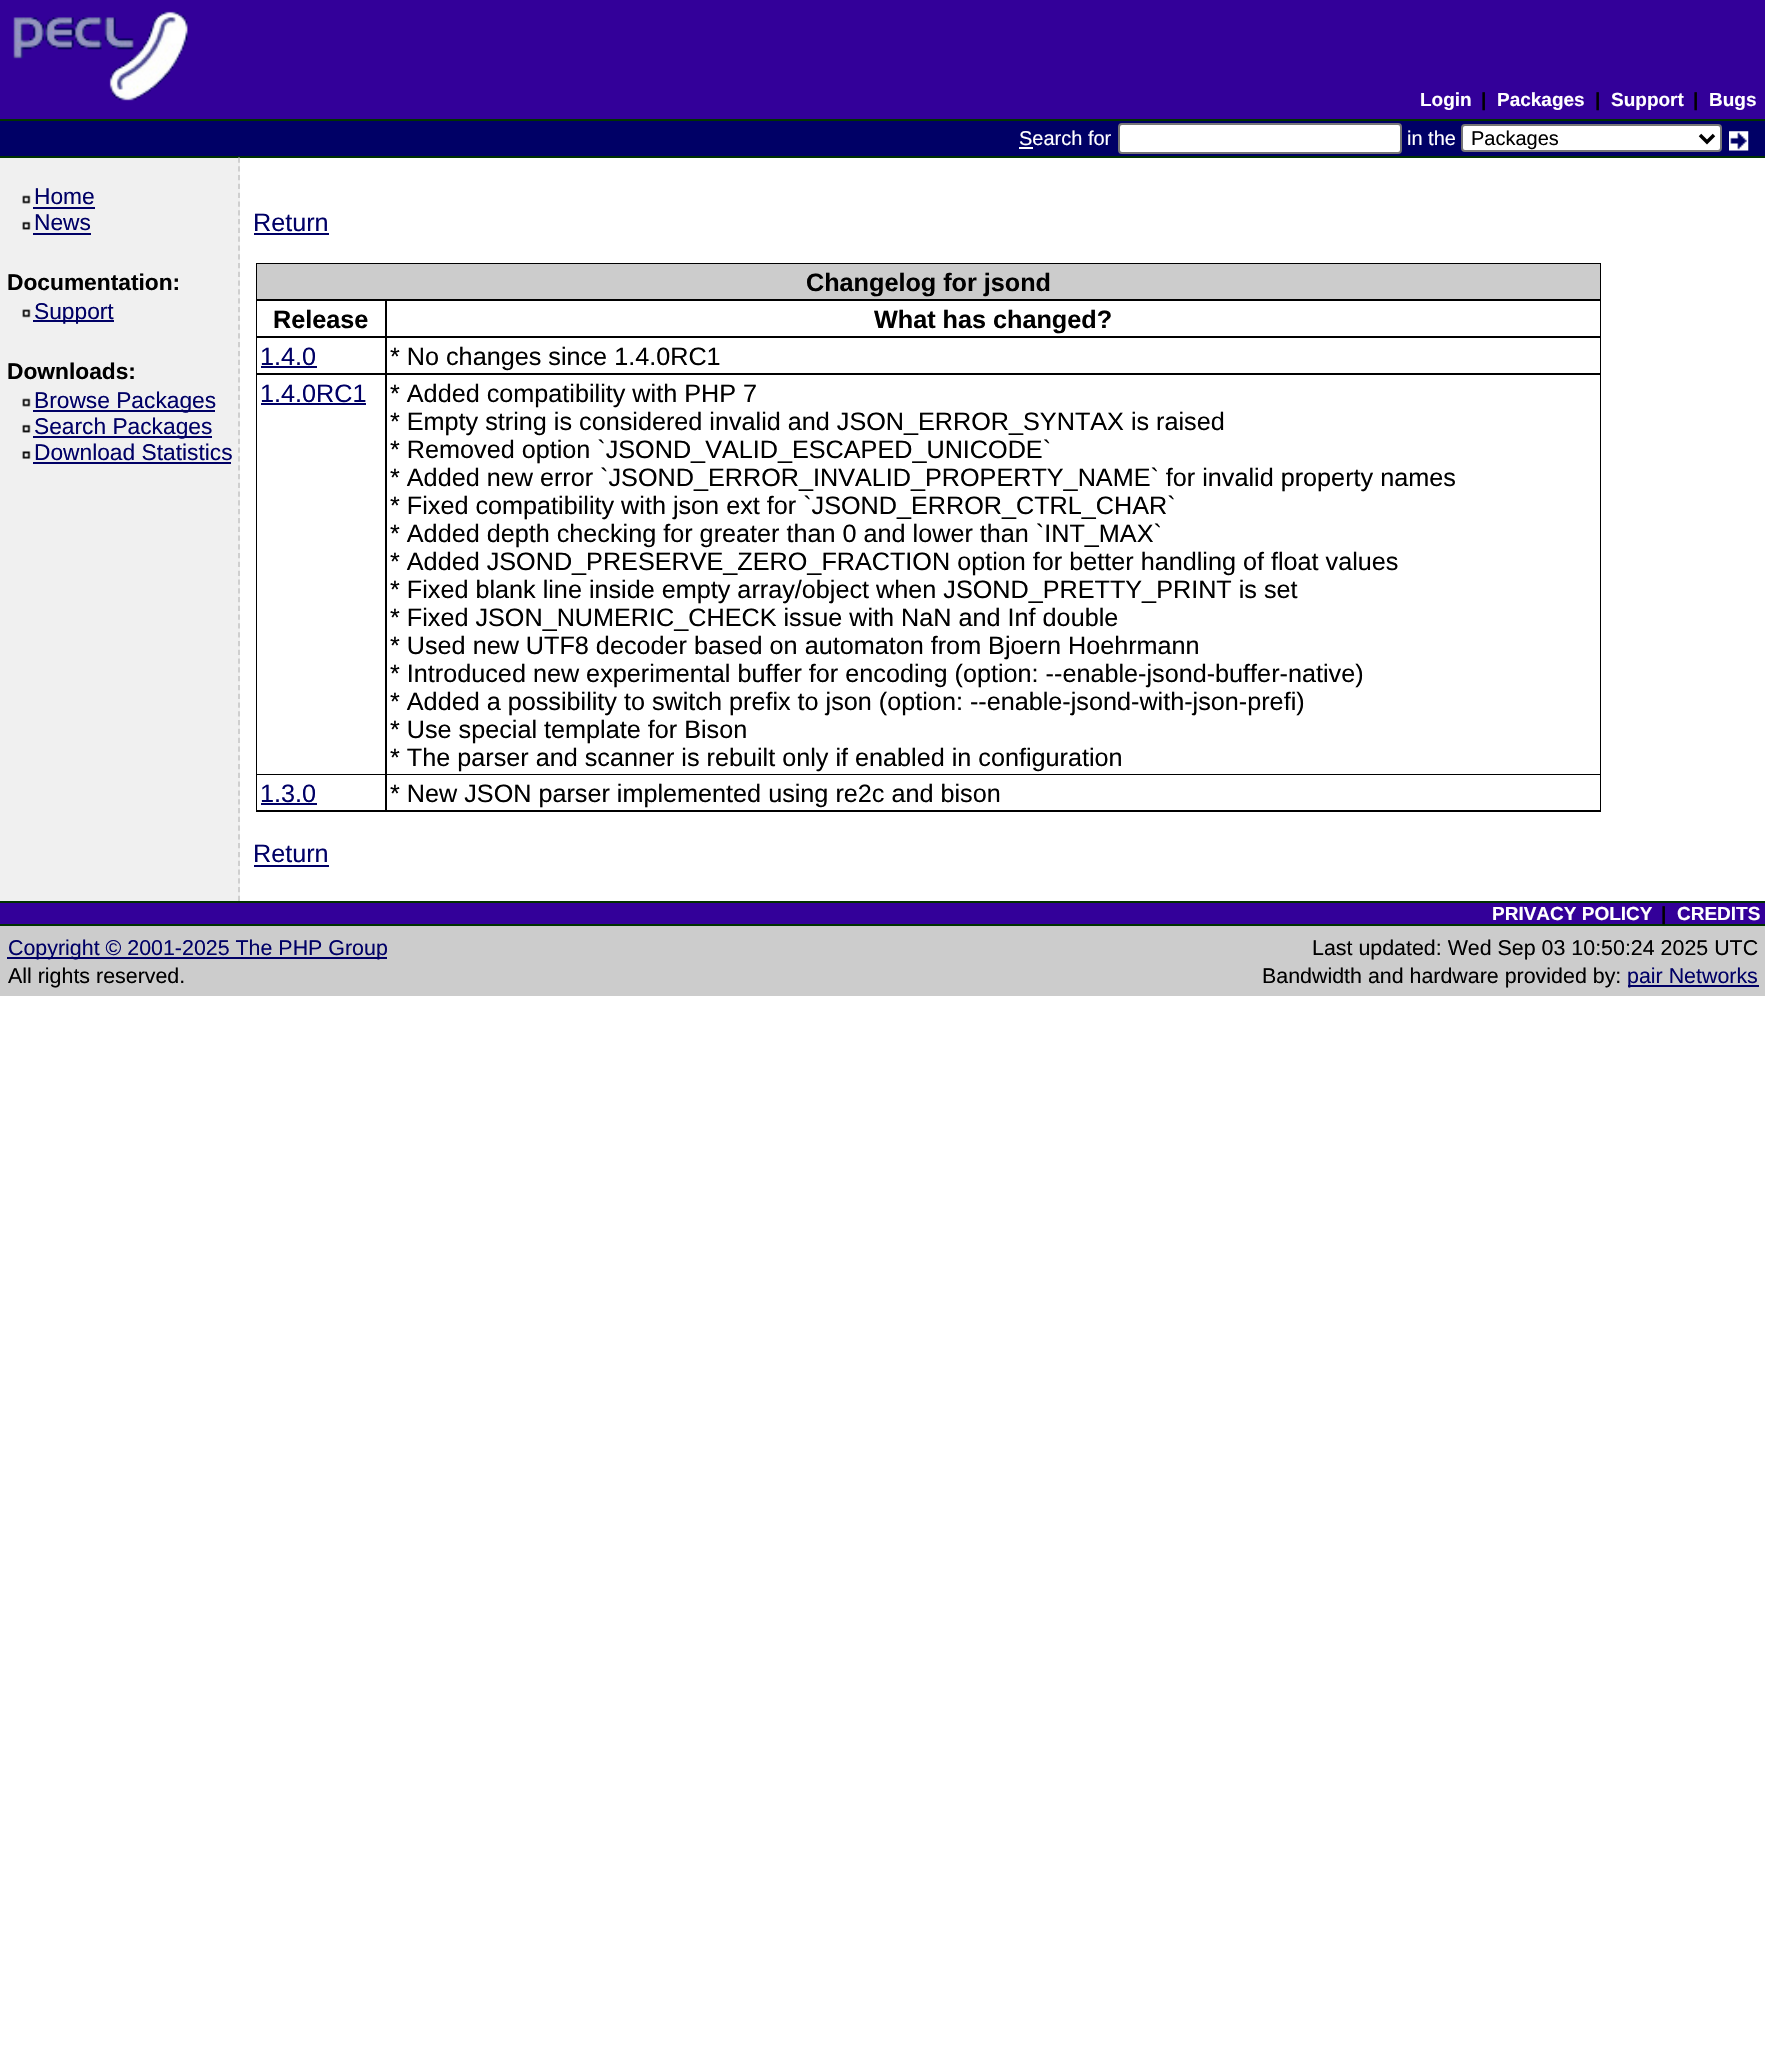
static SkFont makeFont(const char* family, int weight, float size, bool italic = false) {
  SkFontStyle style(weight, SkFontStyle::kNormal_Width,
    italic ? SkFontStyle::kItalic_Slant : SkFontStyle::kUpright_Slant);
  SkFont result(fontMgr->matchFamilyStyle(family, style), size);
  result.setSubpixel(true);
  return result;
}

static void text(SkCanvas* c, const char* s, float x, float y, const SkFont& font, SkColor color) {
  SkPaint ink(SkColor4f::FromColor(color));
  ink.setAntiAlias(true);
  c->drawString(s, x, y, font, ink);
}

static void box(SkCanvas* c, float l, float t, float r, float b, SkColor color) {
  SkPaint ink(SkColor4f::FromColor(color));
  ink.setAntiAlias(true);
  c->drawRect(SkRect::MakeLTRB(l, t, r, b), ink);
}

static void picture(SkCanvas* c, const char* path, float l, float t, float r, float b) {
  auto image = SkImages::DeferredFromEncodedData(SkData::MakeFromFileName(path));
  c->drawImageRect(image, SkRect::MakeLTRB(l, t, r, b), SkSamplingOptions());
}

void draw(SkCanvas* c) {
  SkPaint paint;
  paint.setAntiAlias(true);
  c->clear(0xffffffff);
  box(c, 0, 0, 1765, 119, 0xff330099);
  picture(c, "img_01.png", 13, 11, 188, 101);
  SkFont face1 = makeFont("Liberation Sans", 700, 19);
  text(c, "Login", 1420, 106, face1, 0xffffffff);
  text(c, "|", 1481, 106, face1, 0xff000000);
  text(c, "Packages", 1497, 106, face1, 0xffffffff);
  text(c, "|", 1595, 106, face1, 0xff000000);
  text(c, "Support", 1611, 106, face1, 0xffffffff);
  text(c, "|", 1693, 106, face1, 0xff000000);
  text(c, "Bugs", 1709, 106, face1, 0xffffffff);
  box(c, 0, 121, 1765, 156, 0xff000066);
  box(c, 0, 119, 1765, 121, 0xff003300);
  box(c, 0, 156, 1765, 158, 0xff003300);
  SkFont face2 = makeFont("Liberation Sans", 400, 20);
  text(c, "Search for", 1019, 145, face2, 0xffffffff);
  box(c, 1019, 147, 1033, 149, 0xffffffff);
  paint.setColor(0xffffffff);
  c->drawRoundRect(SkRect::MakeLTRB(1119, 124, 1401, 153), 3, 3, paint);
  paint.setStyle(SkPaint::kStroke_Style);
  paint.setStrokeWidth(2);
  paint.setColor(0xff767676);
  c->drawRoundRect(SkRect::MakeLTRB(1119, 124, 1401, 153), 3, 3, paint);
  text(c, "in the", 1407, 145, face2, 0xffffffff);
  paint.setStyle(SkPaint::kFill_Style);
  paint.setColor(0xffffffff);
  c->drawRoundRect(SkRect::MakeLTRB(1462, 125, 1721, 151), 3, 3, paint);
  paint.setStyle(SkPaint::kStroke_Style);
  paint.setColor(0xff767676);
  c->drawRoundRect(SkRect::MakeLTRB(1462, 125, 1721, 151), 3, 3, paint);
  paint.setStrokeWidth(3.5f);
  paint.setColor(0xff000000);
  c->drawPath(SkPathBuilder().moveTo(1700, 135).lineTo(1707, 142).lineTo(1714, 135).detach(), paint);
  text(c, "Packages", 1471, 145, face2, 0xff000000);
  picture(c, "img_02.png", 1729, 131, 1749, 151);
  box(c, 0, 158, 240, 901, 0xfff0f0f0);
  paint.setStrokeWidth(1.8f);
  paint.setColor(0xffcccccc);
  paint.setPathEffect(SkDashPathEffect::Make({{5.25f, 3.54f}}, 0));
  c->drawPath(SkPathBuilder().moveTo(239, 157.5f).lineTo(239, 901).detach(), paint);
  paint.setPathEffect(nullptr);
  picture(c, "img_03.png", 22, 195, 31, 204);
  SkFont face3 = makeFont("Liberation Sans", 400, 22.75f);
  text(c, "Home", 34, 204, face3, 0xff000066);
  box(c, 33, 207, 95, 209, 0xff000066);
  picture(c, "img_04.png", 22, 221, 31, 230);
  text(c, "News", 34, 230, face3, 0xff000066);
  box(c, 33, 233, 91, 235, 0xff000066);
  SkFont face4 = makeFont("Liberation Sans", 700, 22.75f);
  text(c, "Documentation:", 7, 290, face4, 0xff000000);
  picture(c, "img_05.png", 22, 309, 31, 318);
  box(c, 33, 320, 114, 322, 0xff000066);
  text(c, "Support", 34, 319, face3, 0xff000066);
  text(c, "Downloads:", 7, 379, face4, 0xff000000);
  picture(c, "img_03.png", 22, 398, 31, 407);
  box(c, 33, 410, 215, 412, 0xff000066);
  text(c, "Browse Packages", 34, 408, face3, 0xff000066);
  picture(c, "img_06.png", 22, 424, 31, 433);
  box(c, 33, 436, 212, 438, 0xff000066);
  text(c, "Search Packages", 34, 434, face3, 0xff000066);
  picture(c, "img_07.png", 22, 451, 31, 459);
  text(c, "Download Statistics", 34, 460, face3, 0xff000066);
  box(c, 33, 462, 231, 464, 0xff000066);
  SkFont face5 = makeFont("Liberation Sans", 400, 25.2f);
  text(c, "Return", 253, 231, face5, 0xff000066);
  box(c, 254, 233, 329, 235, 0xff000066);
  box(c, 256, 263, 1601, 812, 0xff000000);
  box(c, 257, 264, 1600, 299, 0xffcccccc);
  SkFont face6 = makeFont("Liberation Sans", 700, 25.2f);
  text(c, "Changelog for jsond", 806, 291, face6, 0xff000000);
  box(c, 257, 301, 385, 336, 0xffffffff);
  text(c, "Release", 273, 328, face6, 0xff000000);
  box(c, 387, 301, 1600, 336, 0xffffffff);
  text(c, "What has changed?", 874, 328, face6, 0xff000000);
  box(c, 257, 338, 385, 373, 0xffffffff);
  text(c, "1.4.0", 260, 365, face5, 0xff000066);
  box(c, 261, 366, 317, 368, 0xff000066);
  box(c, 387, 338, 1600, 373, 0xffffffff);
  text(c, "* No changes since 1.4.0RC1", 390, 365, face5, 0xff000000);
  box(c, 257, 375, 385, 774, 0xffffffff);
  text(c, "1.4.0RC1", 260, 402, face5, 0xff000066);
  box(c, 261, 403, 366, 405, 0xff000066);
  box(c, 387, 375, 1600, 774, 0xffffffff);
  text(c, "* Added compatibility with PHP 7", 390, 402, face5, 0xff000000);
  text(c, "* Empty string is considered invalid and JSON_ERROR_SYNTAX is raised", 390, 430, face5, 0xff000000);
  text(c, "* Removed option `JSOND_VALID_ESCAPED_UNICODE`", 390, 458, face5, 0xff000000);
  text(c, "* Added new error `JSOND_ERROR_INVALID_PROPERTY_NAME` for invalid property names", 390, 486, face5, 0xff000000);
  text(c, "* Fixed compatibility with json ext for `JSOND_ERROR_CTRL_CHAR`", 390, 514, face5, 0xff000000);
  text(c, "* Added depth checking for greater than 0 and lower than `INT_MAX`", 390, 542, face5, 0xff000000);
  text(c, "* Added JSOND_PRESERVE_ZERO_FRACTION option for better handling of float values", 390, 570, face5, 0xff000000);
  text(c, "* Fixed blank line inside empty array/object when JSOND_PRETTY_PRINT is set", 390, 598, face5, 0xff000000);
  text(c, "* Fixed JSON_NUMERIC_CHECK issue with NaN and Inf double", 390, 626, face5, 0xff000000);
  text(c, "* Used new UTF8 decoder based on automaton from Bjoern Hoehrmann", 390, 654, face5, 0xff000000);
  text(c, "* Introduced new experimental buffer for encoding (option: --enable-jsond-buffer-native)", 390, 682, face5, 0xff000000);
  text(c, "* Added a possibility to switch prefix to json (option: --enable-jsond-with-json-prefi)", 390, 710, face5, 0xff000000);
  text(c, "* Use special template for Bison", 390, 738, face5, 0xff000000);
  text(c, "* The parser and scanner is rebuilt only if enabled in configuration", 390, 766, face5, 0xff000000);
  box(c, 257, 775, 385, 810, 0xffffffff);
  text(c, "1.3.0", 260, 802, face5, 0xff000066);
  box(c, 261, 803, 317, 805, 0xff000066);
  box(c, 387, 775, 1600, 810, 0xffffffff);
  text(c, "* New JSON parser implemented using re2c and bison", 390, 802, face5, 0xff000000);
  text(c, "Return", 253, 862, face5, 0xff000066);
  box(c, 254, 865, 329, 867, 0xff000066);
  box(c, 0, 903, 1765, 924, 0xff330099);
  box(c, 0, 901, 1765, 903, 0xff003300);
  box(c, 0, 924, 1765, 926, 0xff003300);
  text(c, "PRIVACY POLICY", 1492, 920, face1, 0xffffffff);
  text(c, "|", 1661, 920, face1, 0xff000000);
  text(c, "CREDITS", 1677, 920, face1, 0xffffffff);
  box(c, 0, 926, 1765, 996, 0xffcccccc);
  box(c, 7, 957, 387, 959, 0xff000066);
  SkFont face7 = makeFont("Liberation Sans", 400, 21.4f);
  text(c, "Copyright © 2001-2025 The PHP Group", 8, 955, face7, 0xff000066);
  text(c, "All rights reserved.", 8, 983, face7, 0xff000000);
  text(c, "Last updated: Wed Sep 03 10:50:24 2025 UTC", 1312, 955, face7, 0xff000000);
  text(c, "Bandwidth and hardware provided by:", 1262, 983, face7, 0xff000000);
  box(c, 1628, 985, 1759, 987, 0xff000066);
  text(c, "pair Networks", 1627, 983, face7, 0xff000066);
}
